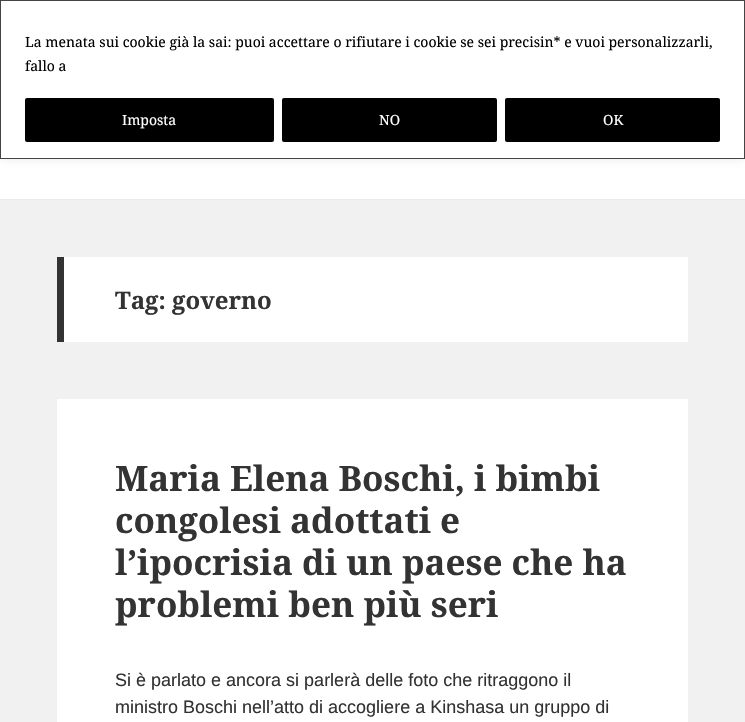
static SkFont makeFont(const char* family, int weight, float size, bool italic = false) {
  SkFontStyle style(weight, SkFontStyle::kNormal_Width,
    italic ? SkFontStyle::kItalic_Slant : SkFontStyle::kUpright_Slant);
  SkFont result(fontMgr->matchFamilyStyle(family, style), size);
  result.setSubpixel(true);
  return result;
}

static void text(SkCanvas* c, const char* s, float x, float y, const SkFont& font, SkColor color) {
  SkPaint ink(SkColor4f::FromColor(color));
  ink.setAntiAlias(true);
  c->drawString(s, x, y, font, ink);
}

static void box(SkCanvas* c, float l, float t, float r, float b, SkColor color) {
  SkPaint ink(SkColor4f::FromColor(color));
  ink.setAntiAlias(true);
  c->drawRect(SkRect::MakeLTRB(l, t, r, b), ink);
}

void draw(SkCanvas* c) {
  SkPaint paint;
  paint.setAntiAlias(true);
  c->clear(0xfff1f1f1);
  box(c, 0, 159, 745, 199, 0xffffffff);
  paint.setColor(0x4dacabab);
  paint.setMaskFilter(SkMaskFilter::MakeBlur(kNormal_SkBlurStyle, 5));
  c->drawRect(SkRect::MakeLTRB(0, -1, 745, 158), paint);
  paint.setMaskFilter(nullptr);
  paint.setColor(0xffffffff);
  c->drawRect(SkRect::MakeLTRB(0.5f, 0.5f, 744.5f, 158.5f), paint);
  paint.setStyle(SkPaint::kStroke_Style);
  paint.setStrokeWidth(1);
  paint.setColor(0xff444444);
  c->drawRect(SkRect::MakeLTRB(0.5f, 0.5f, 744.5f, 158.5f), paint);
  SkFont face1 = makeFont("Noto Serif", 400, 14);
  text(c, "La menata sui cookie già la sai: puoi accettare o rifiutare i cookie se sei precisin* e vuoi personalizzarli,", 25, 47, face1, 0xff000000);
  text(c, "fallo a", 25, 71, face1, 0xff000000);
  paint.setStyle(SkPaint::kFill_Style);
  paint.setColor(0xff000000);
  c->drawRoundRect(SkRect::MakeLTRB(26, 99, 273, 141), 1, 1, paint);
  paint.setStyle(SkPaint::kStroke_Style);
  paint.setStrokeWidth(2);
  c->drawRoundRect(SkRect::MakeLTRB(26, 99, 273, 141), 1, 1, paint);
  text(c, "Imposta", 122, 125, face1, 0xffffffff);
  paint.setStyle(SkPaint::kFill_Style);
  c->drawRoundRect(SkRect::MakeLTRB(283, 99, 496, 141), 1, 1, paint);
  paint.setStyle(SkPaint::kStroke_Style);
  c->drawRoundRect(SkRect::MakeLTRB(283, 99, 496, 141), 1, 1, paint);
  text(c, "NO", 379, 125, face1, 0xffffffff);
  paint.setStyle(SkPaint::kFill_Style);
  c->drawRoundRect(SkRect::MakeLTRB(506, 99, 719, 141), 1, 1, paint);
  paint.setStyle(SkPaint::kStroke_Style);
  c->drawRoundRect(SkRect::MakeLTRB(506, 99, 719, 141), 1, 1, paint);
  text(c, "OK", 603, 125, face1, 0xffffffff);
  box(c, 0, 199, 745, 200, 0xffebebeb);
  box(c, 64, 257, 688, 342, 0xffffffff);
  box(c, 57, 257, 64, 342, 0xff333333);
  SkFont face2 = makeFont("Noto Serif", 700, 24);
  text(c, "Tag: governo", 115, 309, face2, 0xff333333);
  box(c, 57, 399, 688, 722, 0xffffffff);
  SkFont face3 = makeFont("Noto Serif", 700, 35);
  text(c, "Maria Elena Boschi, i bimbi", 115, 491, face3, 0xff333333);
  text(c, "congolesi adottati e", 115, 533, face3, 0xff333333);
  text(c, "l’ipocrisia di un paese che ha", 115, 575, face3, 0xff333333);
  text(c, "problemi ben più seri", 115, 617, face3, 0xff333333);
  SkFont face4 = makeFont("Liberation Sans", 400, 18);
  text(c, "Si è parlato e ancora si parlerà delle foto che ritraggono il", 115, 686, face4, 0xff333333);
  text(c, "ministro Boschi nell’atto di accogliere a Kinshasa un gruppo di", 115, 713, face4, 0xff333333);
}
